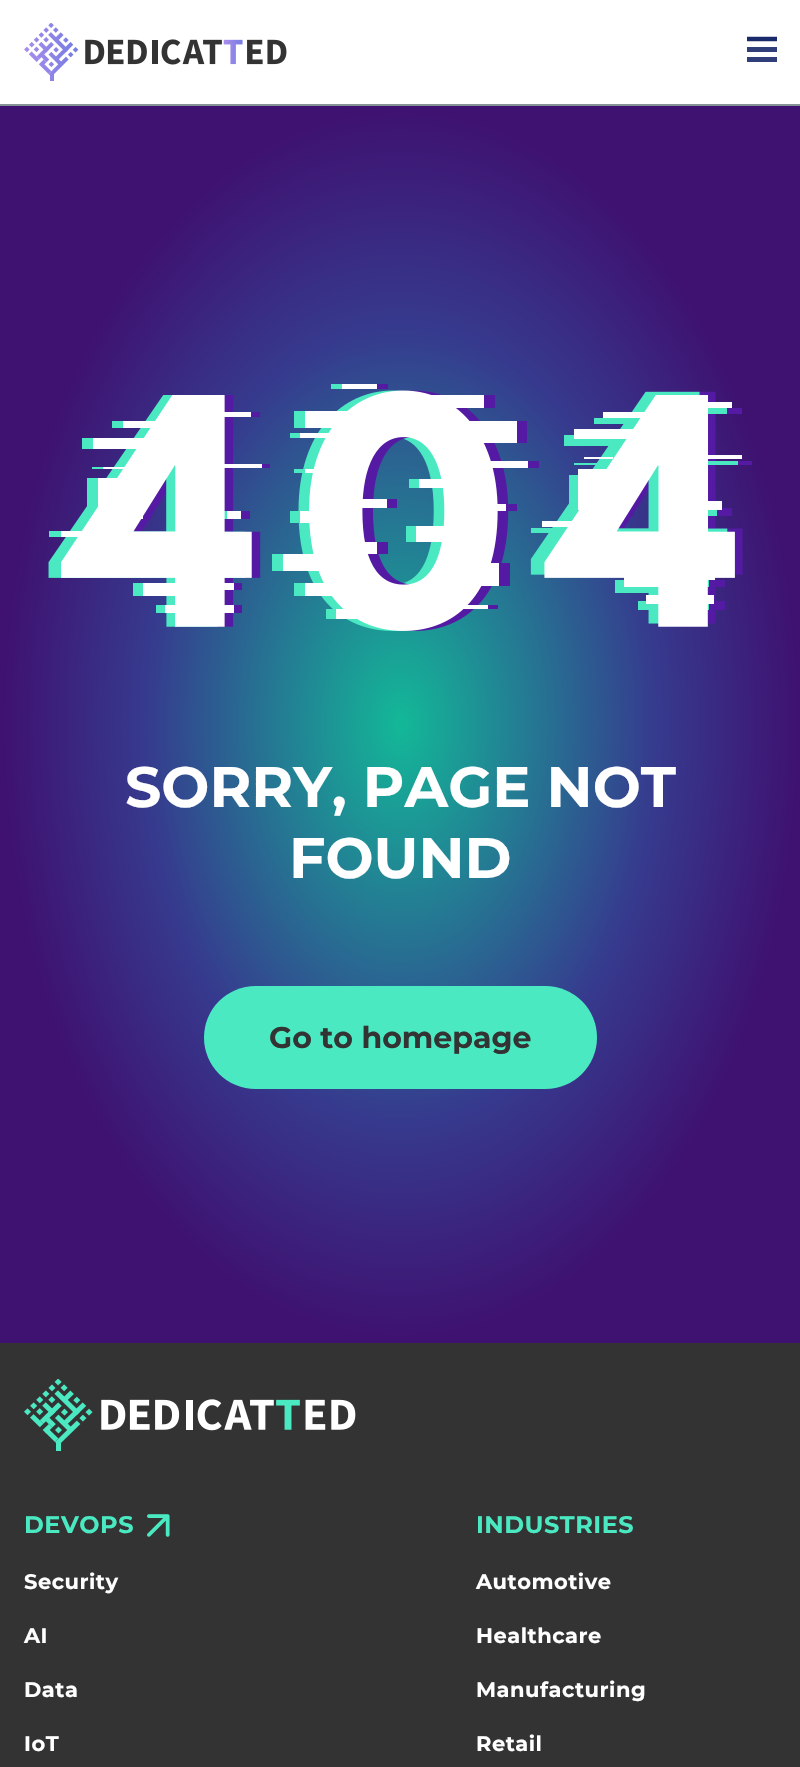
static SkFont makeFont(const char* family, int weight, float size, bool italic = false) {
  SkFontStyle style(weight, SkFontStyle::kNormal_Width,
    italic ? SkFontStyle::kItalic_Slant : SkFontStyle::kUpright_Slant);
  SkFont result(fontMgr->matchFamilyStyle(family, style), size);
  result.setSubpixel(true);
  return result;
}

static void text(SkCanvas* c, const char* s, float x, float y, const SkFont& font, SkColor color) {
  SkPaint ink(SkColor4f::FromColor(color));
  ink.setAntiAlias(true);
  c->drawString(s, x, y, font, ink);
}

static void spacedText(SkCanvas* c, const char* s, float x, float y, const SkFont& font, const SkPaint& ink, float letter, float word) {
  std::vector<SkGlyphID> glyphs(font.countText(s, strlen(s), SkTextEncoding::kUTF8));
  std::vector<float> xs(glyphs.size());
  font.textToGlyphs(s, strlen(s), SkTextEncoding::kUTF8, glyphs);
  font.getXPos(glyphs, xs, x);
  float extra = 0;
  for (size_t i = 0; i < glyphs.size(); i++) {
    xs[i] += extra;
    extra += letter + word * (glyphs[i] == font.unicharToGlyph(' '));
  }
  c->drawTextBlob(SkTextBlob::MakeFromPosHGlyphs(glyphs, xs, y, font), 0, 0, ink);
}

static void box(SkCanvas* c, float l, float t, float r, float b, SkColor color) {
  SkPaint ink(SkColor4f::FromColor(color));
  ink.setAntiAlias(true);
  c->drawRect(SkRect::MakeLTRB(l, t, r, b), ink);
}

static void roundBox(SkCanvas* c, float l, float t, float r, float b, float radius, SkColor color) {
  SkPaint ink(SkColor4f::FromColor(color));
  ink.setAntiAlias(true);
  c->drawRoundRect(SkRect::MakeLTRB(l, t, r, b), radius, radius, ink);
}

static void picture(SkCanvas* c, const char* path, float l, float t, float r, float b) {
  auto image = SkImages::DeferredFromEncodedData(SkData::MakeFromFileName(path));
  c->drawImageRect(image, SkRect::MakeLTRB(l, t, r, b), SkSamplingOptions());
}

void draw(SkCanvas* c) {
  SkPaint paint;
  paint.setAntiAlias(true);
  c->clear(0xffffffff);
  box(c, 0, 104, 800, 106, 0xff859394);
  picture(c, "img_01.png", 24, 23, 287, 81);
  paint.setStyle(SkPaint::kStroke_Style);
  paint.setStrokeWidth(4.5f);
  paint.setColor(0xff192a6b);
  c->drawPath(SkPathBuilder().moveTo(777, 39).lineTo(747, 39).detach(), paint);
  box(c, 747, 47, 777, 52, 0xff303f7a);
  box(c, 747, 57, 777, 62, 0xff303f7a);
  paint.setStyle(SkPaint::kFill_Style);
  {
    const SkColor colors[] = {0xff13b898, 0xff363a8e, 0xff3f1170};
    const float stops[] = {0, 0.64f, 1};
    SkMatrix m = SkMatrix::Translate(401, 724).preScale(401, 619);
    paint.setShader(SkGradientShader::MakeRadial({0, 0}, 1, colors, stops, 3, SkTileMode::kClamp, 0, &m));
    paint.setAlpha(255);
  }
  c->drawRect(SkRect::MakeLTRB(0, 106, 800, 1343), paint);
  picture(c, "img_02.png", 48, 384, 752, 631);
  SkFont face1 = makeFont("Montserrat", 700, 57);
  text(c, "SORRY, PAGE NOT", 125, 807, face1, 0xffffffff);
  text(c, "FOUND", 289, 878, face1, 0xffffffff);
  roundBox(c, 204, 986, 597, 1089, 51.5f, 0xff4ae9c2);
  SkFont face2 = makeFont("Montserrat", 700, 30);
  text(c, "Go to homepage", 269, 1048, face2, 0xff333333);
  box(c, 0, 1343, 800, 1767, 0xff333333);
  picture(c, "img_03.png", 24, 1379, 356, 1451);
  SkFont face3 = makeFont("Montserrat", 700, 24);
  paint.setShader(nullptr);
  paint.setColor(0xff4ae9c2);
  spacedText(c, "DEVOPS", 24, 1533, face3, paint, 0.5f, 0);
  picture(c, "img_04.png", 147, 1514, 170, 1537);
  SkFont face4 = makeFont("Montserrat", 700, 21);
  paint.setColor(0xffffffff);
  spacedText(c, "Security", 24, 1589, face4, paint, 0.5f, 0);
  spacedText(c, "AI", 24, 1643, face4, paint, 0.5f, 0);
  spacedText(c, "Data", 24, 1697, face4, paint, 0.5f, 0);
  spacedText(c, "IoT", 24, 1751, face4, paint, 0.5f, 0);
  paint.setColor(0xff4ae9c2);
  spacedText(c, "INDUSTRIES", 476, 1533, face3, paint, 0.5f, 0);
  paint.setColor(0xffffffff);
  spacedText(c, "Automotive", 476, 1589, face4, paint, 0.5f, 0);
  spacedText(c, "Healthcare", 476, 1643, face4, paint, 0.5f, 0);
  spacedText(c, "Manufacturing", 476, 1697, face4, paint, 0.5f, 0);
  spacedText(c, "Retail", 476, 1751, face4, paint, 0.5f, 0);
}
